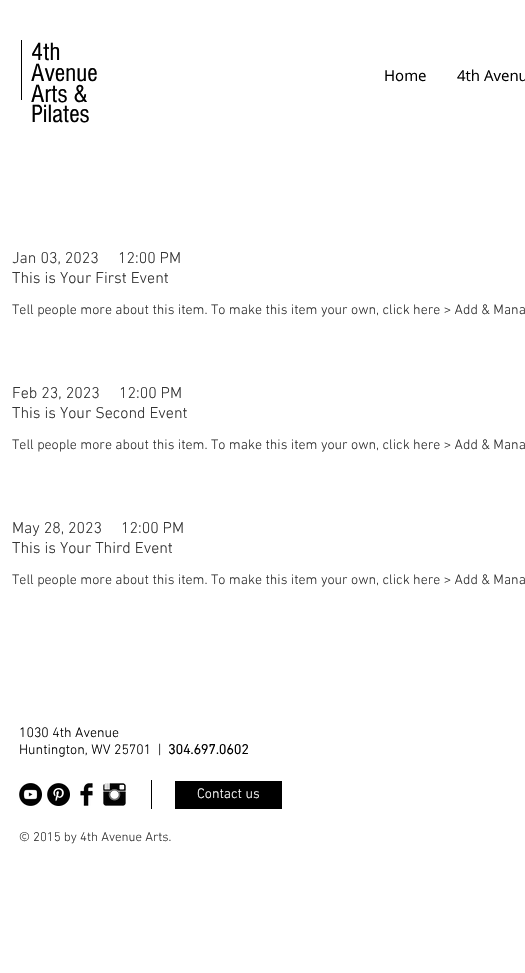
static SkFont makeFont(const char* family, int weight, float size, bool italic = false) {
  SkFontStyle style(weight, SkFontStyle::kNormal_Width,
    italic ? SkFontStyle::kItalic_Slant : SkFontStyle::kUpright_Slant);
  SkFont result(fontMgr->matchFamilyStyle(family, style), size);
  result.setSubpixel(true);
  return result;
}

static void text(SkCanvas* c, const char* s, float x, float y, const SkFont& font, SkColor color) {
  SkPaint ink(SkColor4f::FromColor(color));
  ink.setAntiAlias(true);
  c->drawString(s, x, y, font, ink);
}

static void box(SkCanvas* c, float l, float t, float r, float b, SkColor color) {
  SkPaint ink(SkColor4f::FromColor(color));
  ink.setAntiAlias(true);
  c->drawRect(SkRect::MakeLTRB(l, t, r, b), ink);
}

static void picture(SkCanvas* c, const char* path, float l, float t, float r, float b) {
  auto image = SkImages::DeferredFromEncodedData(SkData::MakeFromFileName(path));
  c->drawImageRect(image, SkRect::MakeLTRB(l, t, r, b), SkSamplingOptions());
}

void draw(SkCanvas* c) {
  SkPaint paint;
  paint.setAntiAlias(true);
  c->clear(0xffffffff);
  box(c, 21, 40, 22, 100, 0xff000000);
  SkFont face1 = makeFont("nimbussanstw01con", 400, 26);
  text(c, "4th", 31, 60, face1, 0xff000000);
  text(c, "Avenue", 31, 81, face1, 0xff000000);
  text(c, "Arts &", 31, 102, face1, 0xff000000);
  text(c, "Pilates", 31, 122, face1, 0xff000000);
  SkFont face2 = makeFont("Open Sans", 400, 15);
  text(c, "Home", 384, 81, face2, 0xff000000);
  text(c, "4th Avenu", 457, 81, face2, 0xff000000);
  SkFont face3 = makeFont("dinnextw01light", 300, 16);
  text(c, "Jan 03, 2023", 12, 263, face3, 0xff333333);
  text(c, "12:00 PM", 118, 263, face3, 0xff333333);
  text(c, "This is Your First Event", 12, 283, face3, 0xff333333);
  SkFont face4 = makeFont("dinnextw01light", 300, 14);
  text(c, "Tell people more about this item. To make this item your own, click here > Add & Mana", 12, 314, face4, 0xff333333);
  text(c, "Feb 23, 2023", 12, 398, face3, 0xff333333);
  text(c, "12:00 PM", 119, 398, face3, 0xff333333);
  text(c, "This is Your Second Event", 12, 418, face3, 0xff333333);
  text(c, "Tell people more about this item. To make this item your own, click here > Add & Mana", 12, 449, face4, 0xff333333);
  text(c, "May 28, 2023", 12, 533, face3, 0xff333333);
  text(c, "12:00 PM", 121, 533, face3, 0xff333333);
  text(c, "This is Your Third Event", 12, 553, face3, 0xff333333);
  text(c, "Tell people more about this item. To make this item your own, click here > Add & Mana", 12, 584, face4, 0xff333333);
  text(c, "1030 4th Avenue", 19, 737, face4, 0xff000000);
  text(c, "Huntington, WV 25701  |", 19, 754, face4, 0xff000000);
  SkFont face5 = makeFont("dinnextw01light", 700, 14);
  text(c, "304.697.0602", 168, 754, face5, 0xff000000);
  picture(c, "img_01.png", 19, 783, 42, 806);
  picture(c, "img_02.png", 47, 783, 70, 806);
  picture(c, "img_03.png", 80, 783, 93, 806);
  picture(c, "img_04.png", 103, 783, 126, 806);
  box(c, 151, 780, 152, 809, 0xff000000);
  box(c, 175, 781, 282, 809, 0xff000000);
  text(c, "Contact us", 197, 798, face4, 0xffffffff);
  SkFont face6 = makeFont("dinnextw01light", 300, 13);
  text(c, "© 2015 by 4th Avenue Arts.", 19, 841, face6, 0xff333333);
}
